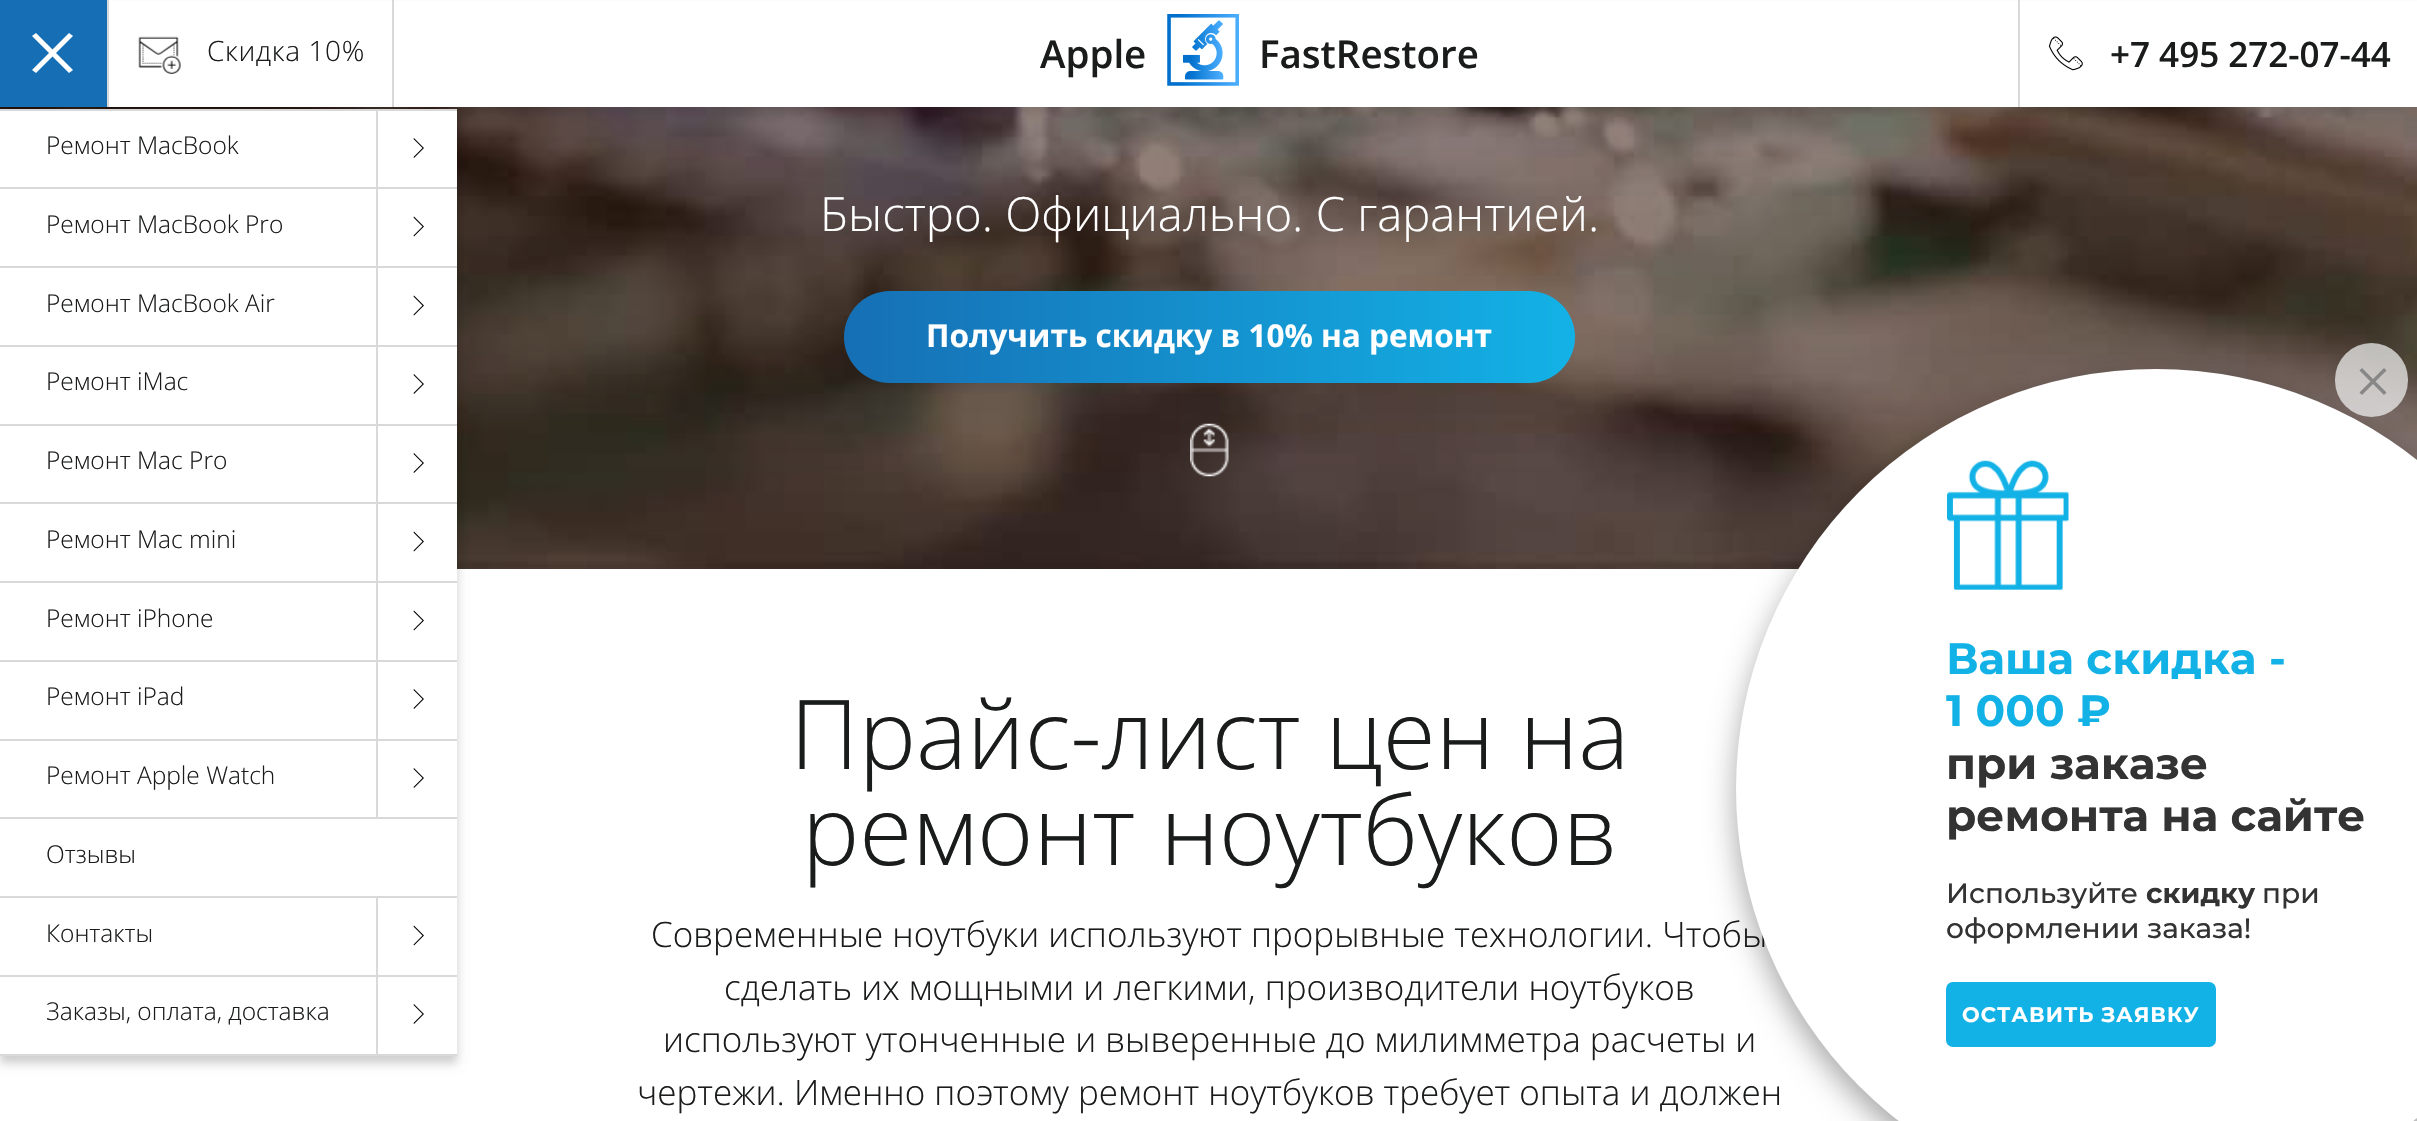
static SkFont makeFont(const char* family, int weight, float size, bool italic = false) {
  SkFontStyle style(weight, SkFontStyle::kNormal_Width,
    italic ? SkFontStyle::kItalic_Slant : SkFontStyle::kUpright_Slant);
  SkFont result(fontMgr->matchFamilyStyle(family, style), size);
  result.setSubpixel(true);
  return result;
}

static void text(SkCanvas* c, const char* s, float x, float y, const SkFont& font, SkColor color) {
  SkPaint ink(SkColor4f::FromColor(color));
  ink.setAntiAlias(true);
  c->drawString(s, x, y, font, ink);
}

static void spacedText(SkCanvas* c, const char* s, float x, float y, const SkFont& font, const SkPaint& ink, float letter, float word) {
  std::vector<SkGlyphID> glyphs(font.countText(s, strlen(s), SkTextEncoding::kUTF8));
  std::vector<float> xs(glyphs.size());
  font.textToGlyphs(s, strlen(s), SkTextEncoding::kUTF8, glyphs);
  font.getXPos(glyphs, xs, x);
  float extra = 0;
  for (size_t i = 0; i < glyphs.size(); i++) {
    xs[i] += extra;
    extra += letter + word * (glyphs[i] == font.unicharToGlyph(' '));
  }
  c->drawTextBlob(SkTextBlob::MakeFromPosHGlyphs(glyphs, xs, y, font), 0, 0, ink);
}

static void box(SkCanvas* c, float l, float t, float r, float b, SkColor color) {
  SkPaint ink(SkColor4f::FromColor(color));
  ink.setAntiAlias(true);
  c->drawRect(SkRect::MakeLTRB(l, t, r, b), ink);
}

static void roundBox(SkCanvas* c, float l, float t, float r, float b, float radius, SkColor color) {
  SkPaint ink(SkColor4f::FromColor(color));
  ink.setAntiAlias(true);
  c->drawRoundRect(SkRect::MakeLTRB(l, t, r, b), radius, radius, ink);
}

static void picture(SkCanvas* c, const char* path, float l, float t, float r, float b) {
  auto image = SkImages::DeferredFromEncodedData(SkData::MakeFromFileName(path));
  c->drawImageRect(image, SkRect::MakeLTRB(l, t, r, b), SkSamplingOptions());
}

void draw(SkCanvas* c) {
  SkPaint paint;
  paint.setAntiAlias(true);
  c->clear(0xffffffff);
  picture(c, "img_04.png", 0, 107, 2417, 569);
  picture(c, "img_05.png", 0, 107, 2417, 569);
  paint.setColor(0x1a000000);
  paint.setMaskFilter(SkMaskFilter::MakeBlur(kNormal_SkBlurStyle, 4.5f));
  c->drawRect(SkRect::MakeLTRB(5, 7, 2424, 114), paint);
  paint.setMaskFilter(nullptr);
  box(c, 109, 1, 2417, 107, 0xffffffff);
  box(c, 392, 0, 394, 107, 0xffd9d9d9);
  picture(c, "img_01.png", 138, 36, 181, 74);
  SkFont face1 = makeFont("Open Sans", 300, 28);
  paint.setColor(0xff1a1b1b);
  spacedText(c, "Скидка 10%", 207, 61, face1, paint, 0.6f, 0);
  SkFont face2 = makeFont("Open Sans", 600, 38.5f);
  text(c, "Apple", 1040, 68, face2, 0xff1a1b1b);
  picture(c, "img_02.png", 1167, 14, 1239, 86);
  text(c, "FastRestore", 1259, 68, face2, 0xff1a1b1b);
  box(c, 2018, 0, 2020, 107, 0xffd9d9d9);
  picture(c, "img_03.png", 2048, 36, 2083, 71);
  SkFont face3 = makeFont("Open Sans", 600, 35);
  text(c, "+7 495 272-07-44", 2110, 67, face3, 0xff1a1b1b);
  box(c, 0, 0, 107, 107, 0xff166fb5);
  box(c, 107, 0, 109, 107, 0xffd9d9d9);
  paint.setColor(0xffffffff);
  c->drawPath(SkPathBuilder().moveTo(36, 33).lineTo(73, 70).lineTo(69, 73).lineTo(32, 36).close().detach(), paint);
  c->drawPath(SkPathBuilder().moveTo(32, 70).lineTo(69, 33).lineTo(73, 36).lineTo(36, 73).close().detach(), paint);
  paint.setColor(0x1a000000);
  paint.setMaskFilter(SkMaskFilter::MakeBlur(kNormal_SkBlurStyle, 4.5f));
  c->drawRect(SkRect::MakeLTRB(0, 117, 457, 1062), paint);
  paint.setMaskFilter(nullptr);
  paint.setMaskFilter(SkMaskFilter::MakeBlur(kNormal_SkBlurStyle, 4.5f));
  c->drawRect(SkRect::MakeLTRB(0, 117, 457, 1064), paint);
  paint.setMaskFilter(nullptr);
  box(c, 0, 111, 457, 1054, 0xffffffff);
  box(c, 0, 109, 457, 111, 0xffd9d9d9);
  SkFont face4 = makeFont("Open Sans", 300, 24.5f);
  text(c, "Ремонт MacBook", 46, 154, face4, 0xff1a1b1b);
  box(c, 376, 110, 378, 187, 0xffd9d9d9);
  paint.setColor(0xff000000);
  c->drawPath(SkPathBuilder().moveTo(414, 138).lineTo(413.5f, 139).lineTo(422.5f, 148).lineTo(413.5f, 157).lineTo(414, 158).lineTo(424, 148).close().detach(), paint);
  box(c, 0, 187, 457, 189, 0xffd9d9d9);
  text(c, "Ремонт MacBook Pro", 46, 233, face4, 0xff1a1b1b);
  box(c, 376, 189, 378, 266, 0xffd9d9d9);
  c->drawPath(SkPathBuilder().moveTo(414, 216.5f).lineTo(413.5f, 217.5f).lineTo(422.5f, 226.5f).lineTo(413.5f, 235.5f).lineTo(414, 236.5f).lineTo(424, 226.5f).close().detach(), paint);
  box(c, 0, 266, 457, 268, 0xffd9d9d9);
  text(c, "Ремонт MacBook Air", 46, 312, face4, 0xff1a1b1b);
  box(c, 376, 268, 378, 345, 0xffd9d9d9);
  c->drawPath(SkPathBuilder().moveTo(414, 295.5f).lineTo(413.5f, 296.5f).lineTo(422.5f, 305.5f).lineTo(413.5f, 314.5f).lineTo(414, 315.5f).lineTo(424, 305.5f).close().detach(), paint);
  box(c, 0, 345, 457, 347, 0xffd9d9d9);
  text(c, "Ремонт iMac", 46, 390, face4, 0xff1a1b1b);
  box(c, 376, 347, 378, 424, 0xffd9d9d9);
  c->drawPath(SkPathBuilder().moveTo(414, 374).lineTo(413.5f, 375).lineTo(422.5f, 384).lineTo(413.5f, 393).lineTo(414, 394).lineTo(424, 384).close().detach(), paint);
  box(c, 0, 424, 457, 426, 0xffd9d9d9);
  text(c, "Ремонт Mac Pro", 46, 469, face4, 0xff1a1b1b);
  box(c, 376, 425, 378, 502, 0xffd9d9d9);
  c->drawPath(SkPathBuilder().moveTo(414, 453).lineTo(413.5f, 454).lineTo(422.5f, 463).lineTo(413.5f, 472).lineTo(414, 473).lineTo(424, 463).close().detach(), paint);
  box(c, 0, 502, 457, 504, 0xffd9d9d9);
  text(c, "Ремонт Mac mini", 46, 548, face4, 0xff1a1b1b);
  box(c, 376, 504, 378, 581, 0xffd9d9d9);
  c->drawPath(SkPathBuilder().moveTo(414, 531.5f).lineTo(413.5f, 532.5f).lineTo(422.5f, 541.5f).lineTo(413.5f, 550.5f).lineTo(414, 551.5f).lineTo(424, 541.5f).close().detach(), paint);
  box(c, 0, 581, 457, 583, 0xffd9d9d9);
  text(c, "Ремонт iPhone", 46, 627, face4, 0xff1a1b1b);
  box(c, 376, 583, 378, 660, 0xffd9d9d9);
  c->drawPath(SkPathBuilder().moveTo(414, 610.5f).lineTo(413.5f, 611.5f).lineTo(422.5f, 620.5f).lineTo(413.5f, 629.5f).lineTo(414, 630.5f).lineTo(424, 620.5f).close().detach(), paint);
  box(c, 0, 660, 457, 662, 0xffd9d9d9);
  text(c, "Ремонт iPad", 46, 705, face4, 0xff1a1b1b);
  box(c, 376, 662, 378, 739, 0xffd9d9d9);
  c->drawPath(SkPathBuilder().moveTo(414, 689).lineTo(413.5f, 690).lineTo(422.5f, 699).lineTo(413.5f, 708).lineTo(414, 709).lineTo(424, 699).close().detach(), paint);
  box(c, 0, 739, 457, 741, 0xffd9d9d9);
  text(c, "Ремонт Apple Watch", 46, 784, face4, 0xff1a1b1b);
  box(c, 376, 740, 378, 817, 0xffd9d9d9);
  c->drawPath(SkPathBuilder().moveTo(414, 768).lineTo(413.5f, 769).lineTo(422.5f, 778).lineTo(413.5f, 787).lineTo(414, 788).lineTo(424, 778).close().detach(), paint);
  box(c, 0, 817, 457, 819, 0xffd9d9d9);
  text(c, "Отзывы", 46, 863, face4, 0xff1a1b1b);
  box(c, 0, 896, 457, 898, 0xffd9d9d9);
  text(c, "Контакты", 46, 942, face4, 0xff1a1b1b);
  box(c, 376, 898, 378, 975, 0xffd9d9d9);
  c->drawPath(SkPathBuilder().moveTo(414, 925.5f).lineTo(413.5f, 926.5f).lineTo(422.5f, 935.5f).lineTo(413.5f, 944.5f).lineTo(414, 945.5f).lineTo(424, 935.5f).close().detach(), paint);
  box(c, 0, 975, 457, 977, 0xffd9d9d9);
  box(c, 0, 1054, 457, 1056, 0xffd9d9d9);
  text(c, "Заказы, оплата, доставка", 46, 1020, face4, 0xff1a1b1b);
  box(c, 376, 977, 378, 1054, 0xffd9d9d9);
  c->drawPath(SkPathBuilder().moveTo(414, 1004).lineTo(413.5f, 1005).lineTo(422.5f, 1014).lineTo(413.5f, 1023).lineTo(414, 1024).lineTo(424, 1014).close().detach(), paint);
  SkFont face5 = makeFont("Open Sans", 300, 47.25f);
  text(c, "Быстро. Официально. С гарантией.", 820, 231, face5, 0xffffffff);
  {
    const SkColor colors[] = {0xff166fb5, 0xff13b2e6};
    const float stops[] = {0, 1};
    const SkPoint ends[] = {{844, 337}, {1575, 337}};
    paint.setShader(SkGradientShader::MakeLinear(ends, colors, stops, 2, SkTileMode::kClamp));
    paint.setAlpha(255);
  }
  c->drawRoundRect(SkRect::MakeLTRB(844, 291, 1575, 383), 46, 46, paint);
  SkFont face6 = makeFont("Open Sans", 700, 31.5f);
  text(c, "Получить скидку в 10% на ремонт", 926, 347, face6, 0xffffffff);
  picture(c, "img_06.png", 1190, 423, 1229, 477);
  SkFont face7 = makeFont("Open Sans", 300, 96.25f);
  text(c, "Прайс-лист цен на", 790, 769, face7, 0xff1a1b1b);
  text(c, "ремонт ноутбуков", 802, 865, face7, 0xff1a1b1b);
  SkFont face8 = makeFont("Open Sans", 300, 35);
  text(c, "Современные ноутбуки используют прорывные технологии. Чтобы", 651, 947, face8, 0xff1a1b1b);
  text(c, "сделать их мощными и легкими, производители ноутбуков", 724, 1000, face8, 0xff1a1b1b);
  text(c, "используют утонченные и выверенные до милимметра расчеты и", 663, 1052, face8, 0xff1a1b1b);
  text(c, "чертежи. Именно поэтому ремонт ноутбуков требует опыта и должен", 637, 1105, face8, 0xff1a1b1b);
  paint.setShader(nullptr);
  paint.setColor(0x59000000);
  paint.setMaskFilter(SkMaskFilter::MakeBlur(kNormal_SkBlurStyle, 15));
  c->drawRoundRect(SkRect::MakeLTRB(1736, 382, 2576, 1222), 420, 420, paint);
  paint.setMaskFilter(nullptr);
  paint.setColor(0xffffffff);
  c->drawCircle(2156, 789, 420, paint);
  roundBox(c, 2335, 343, 2408, 417, 36.5f, 0xb3f4f5f5);
  paint.setColor(0xff878787);
  c->drawPath(SkPathBuilder().moveTo(2362, 368).lineTo(2386.5f, 392.5f).lineTo(2384, 395).lineTo(2359.5f, 370.5f).close().detach(), paint);
  c->drawPath(SkPathBuilder().moveTo(2359.5f, 392.5f).lineTo(2384, 368).lineTo(2386.5f, 370.5f).lineTo(2362, 395).close().detach(), paint);
  picture(c, "img_07.png", 1947, 460, 2069, 590);
  SkFont face9 = makeFont("Montserrat", 700, 43.75f);
  text(c, "Ваша скидка -", 1946, 674, face9, 0xff13b2e6);
  text(c, "1 000 ₽", 1946, 726, face9, 0xff13b2e6);
  text(c, "при заказе", 1946, 779, face9, 0xff333333);
  text(c, "ремонта на сайте", 1946, 831, face9, 0xff333333);
  SkFont face10 = makeFont("Montserrat", 500, 28);
  text(c, "Используйте", 1946, 903, face10, 0xff333333);
  SkFont face11 = makeFont("Montserrat", 700, 28);
  text(c, "скидку", 2146, 903, face11, 0xff333333);
  text(c, "при", 2262, 903, face10, 0xff333333);
  text(c, "оформлении заказа!", 1946, 938, face10, 0xff333333);
  paint.setColor(0xff13b2e6);
  c->drawRoundRect(SkRect::MakeLTRB(1947, 983, 2215, 1046), 6, 6, paint);
  paint.setStyle(SkPaint::kStroke_Style);
  paint.setStrokeWidth(2);
  c->drawRoundRect(SkRect::MakeLTRB(1947, 983, 2215, 1046), 6, 6, paint);
  SkFont face12 = makeFont("Montserrat", 700, 21);
  paint.setStyle(SkPaint::kFill_Style);
  paint.setColor(0xffffffff);
  spacedText(c, "ОСТАВИТЬ ЗАЯВКУ", 1962, 1022, face12, paint, 1, 0);
}
